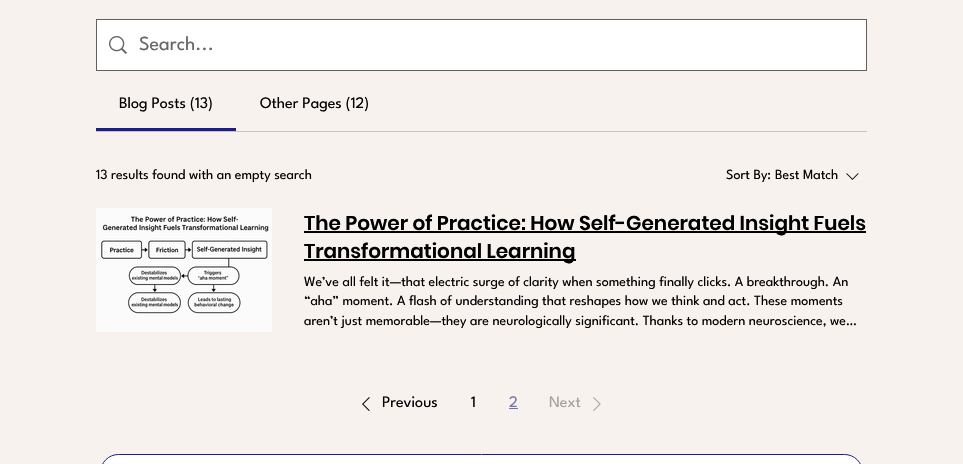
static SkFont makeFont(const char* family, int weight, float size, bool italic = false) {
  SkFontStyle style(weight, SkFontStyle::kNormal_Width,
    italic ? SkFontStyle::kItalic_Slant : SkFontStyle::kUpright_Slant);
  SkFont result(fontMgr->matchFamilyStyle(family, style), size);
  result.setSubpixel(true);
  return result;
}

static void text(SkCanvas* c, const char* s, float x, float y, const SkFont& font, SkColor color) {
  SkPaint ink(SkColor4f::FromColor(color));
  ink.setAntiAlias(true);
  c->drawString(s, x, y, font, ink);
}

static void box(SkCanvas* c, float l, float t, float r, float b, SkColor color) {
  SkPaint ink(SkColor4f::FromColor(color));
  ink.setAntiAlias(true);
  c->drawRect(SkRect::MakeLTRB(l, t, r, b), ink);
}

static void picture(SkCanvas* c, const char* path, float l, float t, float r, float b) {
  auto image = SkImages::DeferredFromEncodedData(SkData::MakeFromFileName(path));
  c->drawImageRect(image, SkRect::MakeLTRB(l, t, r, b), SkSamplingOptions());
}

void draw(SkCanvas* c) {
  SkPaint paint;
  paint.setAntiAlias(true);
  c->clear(0xfff7f2ed);
  paint.setColor(0xffffffff);
  c->drawRect(SkRect::MakeLTRB(96.5f, 19.5f, 866.5f, 70.5f), paint);
  paint.setStyle(SkPaint::kStroke_Style);
  paint.setStrokeWidth(1);
  paint.setColor(0xff63615f);
  c->drawRect(SkRect::MakeLTRB(96.5f, 19.5f, 866.5f, 70.5f), paint);
  picture(c, "img_01.png", 109, 36, 127, 54);
  SkFont face1 = makeFont("League Spartan", 400, 20);
  text(c, "Search...", 139, 50, face1, 0xff666666);
  box(c, 96, 131, 867, 132, 0xffc6c2be);
  box(c, 96, 128, 236, 131, 0xff1c1e87);
  SkFont face2 = makeFont("League Spartan", 400, 16);
  text(c, "Blog Posts (13)", 119, 108, face2, 0xff000000);
  text(c, "Other Pages (12)", 260, 108, face2, 0xff000000);
  SkFont face3 = makeFont("League Spartan", 400, 14);
  text(c, "13 results found with an empty search", 96, 179, face3, 0xff000000);
  text(c, "Sort By:", 726, 179, face3, 0xff000000);
  text(c, "Best Match", 775, 179, face3, 0xff000000);
  picture(c, "img_02.png", 846, 173, 859, 180);
  picture(c, "img_03.png", 96, 208, 272, 332);
  box(c, 304, 231, 866, 233, 0xff000000);
  SkFont face4 = makeFont("Poppins", 600, 20);
  text(c, "The Power of Practice: How Self-Generated Insight Fuels", 304, 230, face4, 0xff000000);
  box(c, 304, 259, 576, 261, 0xff000000);
  text(c, "Transformational Learning", 304, 258, face4, 0xff000000);
  text(c, "We’ve all felt it—that electric surge of clarity when something finally clicks. A breakthrough. An", 304, 286, face3, 0xff000000);
  text(c, "“aha” moment. A flash of understanding that reshapes how we think and act. These moments", 304, 305, face3, 0xff000000);
  text(c, "aren’t just memorable—they are neurologically significant. Thanks to modern neuroscience, we…", 304, 325, face3, 0xff000000);
  picture(c, "img_04.png", 362, 397, 370, 411);
  text(c, "Previous", 382, 407, face2, 0xff000000);
  text(c, "1", 471, 407, face2, 0xff000000);
  text(c, "2", 509, 407, face2, 0xff7473b0);
  box(c, 509, 408, 518, 409, 0xff7473b0);
  text(c, "Next", 549, 407, face2, 0xffa39f99);
  picture(c, "img_05.png", 593, 397, 601, 411);
  paint.setStyle(SkPaint::kFill_Style);
  paint.setColor(0xffffffff);
  c->drawRoundRect(SkRect::MakeLTRB(100.5f, 454.5f, 862.5f, 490.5f), 25.5f, 25.5f, paint);
  paint.setStyle(SkPaint::kStroke_Style);
  paint.setColor(0xff1c1e87);
  c->drawRoundRect(SkRect::MakeLTRB(100.5f, 454.5f, 862.5f, 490.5f), 25.5f, 25.5f, paint);
}
